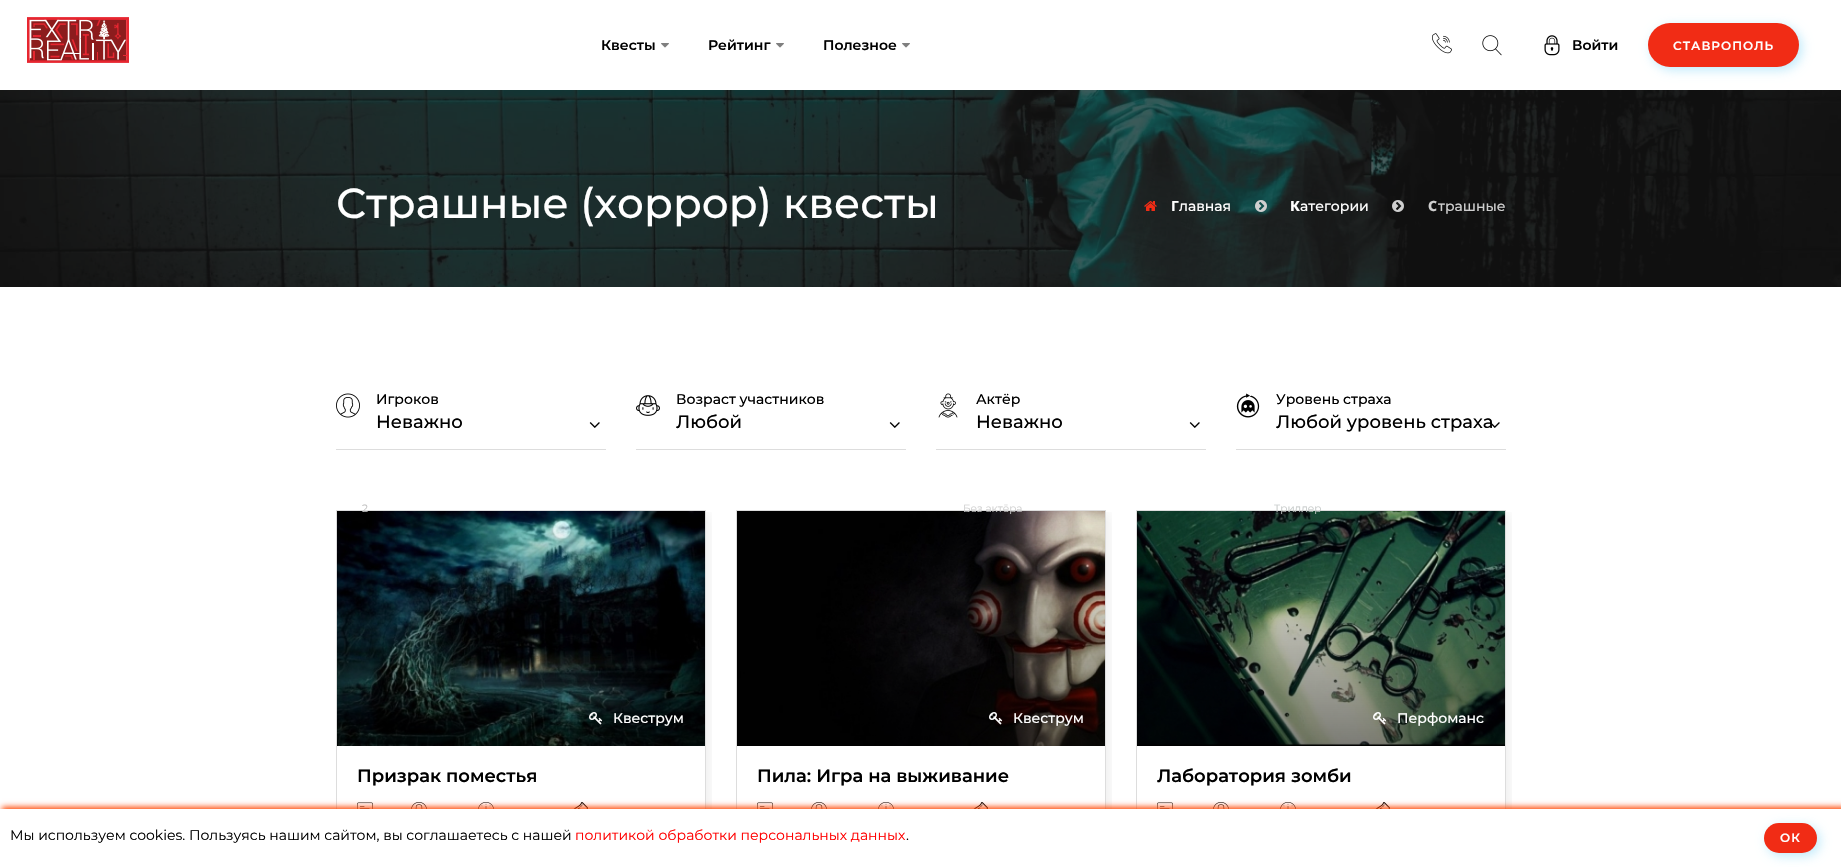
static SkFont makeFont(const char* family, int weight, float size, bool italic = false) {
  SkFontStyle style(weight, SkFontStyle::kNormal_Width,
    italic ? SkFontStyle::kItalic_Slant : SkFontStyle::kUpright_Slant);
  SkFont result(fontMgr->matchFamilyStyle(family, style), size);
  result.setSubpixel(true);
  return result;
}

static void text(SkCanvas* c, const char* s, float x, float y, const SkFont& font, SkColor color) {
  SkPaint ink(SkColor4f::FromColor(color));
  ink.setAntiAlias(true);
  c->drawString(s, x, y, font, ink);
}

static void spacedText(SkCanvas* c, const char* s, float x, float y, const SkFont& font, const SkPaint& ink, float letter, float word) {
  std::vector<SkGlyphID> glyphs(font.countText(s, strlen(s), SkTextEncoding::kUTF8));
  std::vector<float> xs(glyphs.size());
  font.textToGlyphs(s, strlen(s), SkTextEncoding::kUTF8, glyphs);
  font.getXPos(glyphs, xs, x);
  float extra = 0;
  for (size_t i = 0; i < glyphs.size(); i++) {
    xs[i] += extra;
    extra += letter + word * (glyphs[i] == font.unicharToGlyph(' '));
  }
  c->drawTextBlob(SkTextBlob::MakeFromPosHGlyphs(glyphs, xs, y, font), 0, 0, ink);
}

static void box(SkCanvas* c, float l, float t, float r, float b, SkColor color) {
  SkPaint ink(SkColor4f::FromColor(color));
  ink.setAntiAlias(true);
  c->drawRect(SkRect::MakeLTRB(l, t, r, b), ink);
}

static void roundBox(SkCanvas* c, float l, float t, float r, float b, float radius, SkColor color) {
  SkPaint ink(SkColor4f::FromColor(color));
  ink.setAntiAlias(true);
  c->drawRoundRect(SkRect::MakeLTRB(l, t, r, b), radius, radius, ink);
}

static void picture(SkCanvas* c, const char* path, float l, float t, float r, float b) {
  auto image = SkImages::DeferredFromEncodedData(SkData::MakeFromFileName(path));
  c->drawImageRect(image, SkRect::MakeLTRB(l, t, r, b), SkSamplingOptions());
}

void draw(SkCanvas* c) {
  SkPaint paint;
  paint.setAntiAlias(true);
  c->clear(0xffffffff);
  picture(c, "img_01.png", 27, 17, 129, 63);
  SkFont face1 = makeFont("Montserrat", 600, 14);
  text(c, "Квесты", 601, 50, face1, 0xff000000);
  picture(c, "img_02.png", 661, 43, 669, 48);
  text(c, "Рейтинг", 708, 50, face1, 0xff000000);
  picture(c, "img_02.png", 776, 43, 784, 48);
  text(c, "Полезное", 823, 50, face1, 0xff000000);
  picture(c, "img_02.png", 902, 43, 910, 48);
  picture(c, "img_03.png", 1432, 33, 1452, 54);
  picture(c, "img_04.png", 1482, 35, 1502, 56);
  picture(c, "img_05.png", 1544, 35, 1560, 56);
  text(c, "Войти", 1572, 50, face1, 0xff000000);
  paint.setColor(0x4000a7ea);
  paint.setMaskFilter(SkMaskFilter::MakeBlur(kNormal_SkBlurStyle, 5.5f));
  c->drawRoundRect(SkRect::MakeLTRB(1651, 26, 1802, 70), 22, 22, paint);
  paint.setMaskFilter(nullptr);
  roundBox(c, 1648, 23, 1799, 67, 22, 0xfff12c15);
  SkFont face2 = makeFont("Montserrat", 600, 12);
  paint.setColor(0xffffffff);
  spacedText(c, "СТАВРОПОЛЬ", 1673, 50, face2, paint, 1, 0);
  picture(c, "img_06.png", 0, 90, 1841, 287);
  SkFont face3 = makeFont("Montserrat", 500, 42);
  text(c, "Страшные (хоррор) квесты", 336, 218, face3, 0xffffffff);
  picture(c, "img_07.png", 1144, 201, 1157, 211);
  SkFont face4 = makeFont("Noto Sans", 700, 14);
  text(c, "Г", 1171, 211, face4, 0xffffffff);
  SkFont face5 = makeFont("Montserrat", 500, 14);
  text(c, "лавная", 1179, 211, face5, 0xffffffff);
  picture(c, "img_08.png", 1255, 200, 1267, 212);
  SkFont face6 = makeFont("Noto Sans", 800, 14);
  text(c, "К", 1290, 211, face6, 0xffffffff);
  text(c, "атегории", 1300, 211, face5, 0xffffffff);
  picture(c, "img_09.png", 1392, 200, 1404, 212);
  text(c, "С", 1428, 211, face6, 0xffcfcfcf);
  text(c, "трашные", 1438, 211, face5, 0xffcfcfcf);
  box(c, 336, 449, 606, 450, 0xffdddddd);
  text(c, "Игроков", 376, 404, face5, 0xff000000);
  picture(c, "img_10.png", 336, 393, 360, 418);
  SkFont face7 = makeFont("Montserrat", 500, 18);
  text(c, "Неважно", 376, 428, face7, 0xff000000);
  picture(c, "img_11.png", 589, 422, 600, 428);
  c->save();
  c->clipRect(SkRect::MakeLTRB(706, 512, 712, 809));
  paint.setColor(0x12000000);
  paint.setMaskFilter(SkMaskFilter::MakeBlur(kNormal_SkBlurStyle, 5.5f));
  c->drawRect(SkRect::MakeLTRB(339, 513, 709, 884), paint);
  paint.setMaskFilter(nullptr);
  c->restore();
  paint.setStyle(SkPaint::kStroke_Style);
  paint.setStrokeWidth(1);
  paint.setColor(0xffdddddd);
  c->drawRect(SkRect::MakeLTRB(336.5f, 510.5f, 705.5f, 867.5f), paint);
  picture(c, "img_16.png", 337, 511, 705, 746);
  SkFont face8 = makeFont("Montserrat", 400, 10.5f);
  text(c, "2", 362, 512, face8, 0xffc1c1c1);
  box(c, 636, 449, 906, 450, 0xffdddddd);
  text(c, "Возраст участников", 676, 404, face5, 0xff000000);
  picture(c, "img_12.png", 636, 395, 660, 416);
  text(c, "Любой", 676, 428, face7, 0xff000000);
  picture(c, "img_11.png", 889, 422, 900, 428);
  box(c, 936, 449, 1206, 450, 0xffdddddd);
  text(c, "Актёр", 976, 404, face5, 0xff000000);
  picture(c, "img_13.png", 938, 393, 958, 418);
  text(c, "Неважно", 976, 428, face7, 0xff000000);
  picture(c, "img_11.png", 1189, 422, 1200, 428);
  c->save();
  c->clipRect(SkRect::MakeLTRB(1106, 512, 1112, 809));
  paint.setStyle(SkPaint::kFill_Style);
  paint.setColor(0x12000000);
  paint.setMaskFilter(SkMaskFilter::MakeBlur(kNormal_SkBlurStyle, 5.5f));
  c->drawRect(SkRect::MakeLTRB(739, 513, 1109, 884), paint);
  paint.setMaskFilter(nullptr);
  c->restore();
  paint.setStyle(SkPaint::kStroke_Style);
  paint.setColor(0xffdddddd);
  c->drawRect(SkRect::MakeLTRB(736.5f, 510.5f, 1105.5f, 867.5f), paint);
  picture(c, "img_22.png", 737, 511, 1105, 746);
  text(c, "Без актёра", 963, 512, face8, 0xffcfcfcf);
  box(c, 1236, 449, 1506, 450, 0xffdddddd);
  text(c, "Уровень страха", 1276, 404, face5, 0xff000000);
  picture(c, "img_14.png", 1236, 393, 1260, 418);
  text(c, "Любой уровень страха", 1276, 428, face7, 0xff000000);
  picture(c, "img_15.png", 1489, 422, 1500, 428);
  c->save();
  c->clipRect(SkRect::MakeLTRB(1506, 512, 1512, 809));
  paint.setStyle(SkPaint::kFill_Style);
  paint.setColor(0x12000000);
  paint.setMaskFilter(SkMaskFilter::MakeBlur(kNormal_SkBlurStyle, 5.5f));
  c->drawRect(SkRect::MakeLTRB(1139, 513, 1509, 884), paint);
  paint.setMaskFilter(nullptr);
  c->restore();
  paint.setStyle(SkPaint::kStroke_Style);
  paint.setColor(0xffdddddd);
  c->drawRect(SkRect::MakeLTRB(1136.5f, 510.5f, 1505.5f, 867.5f), paint);
  picture(c, "img_24.png", 1137, 511, 1505, 746);
  text(c, "Триллер", 1274, 512, face8, 0xffc5c9c8);
  picture(c, "img_17.png", 589, 712, 603, 725);
  text(c, "Квеструм", 613, 723, face5, 0xffffffff);
  SkFont face9 = makeFont("Montserrat", 600, 18);
  text(c, "Призрак поместья", 357, 782, face9, 0xff000000);
  picture(c, "img_18.png", 357, 802, 373, 809);
  picture(c, "img_19.png", 411, 802, 427, 809);
  picture(c, "img_20.png", 478, 802, 494, 809);
  picture(c, "img_21.png", 573, 802, 588, 809);
  picture(c, "img_23.png", 989, 712, 1003, 725);
  text(c, "Квеструм", 1013, 723, face5, 0xffffffff);
  text(c, "Пила: Игра на выживание", 757, 782, face9, 0xff000000);
  picture(c, "img_18.png", 757, 802, 773, 809);
  picture(c, "img_19.png", 811, 802, 827, 809);
  picture(c, "img_20.png", 878, 802, 894, 809);
  picture(c, "img_21.png", 973, 802, 988, 809);
  picture(c, "img_25.png", 1373, 712, 1387, 725);
  text(c, "Перфоманс", 1397, 723, face5, 0xffffffff);
  text(c, "Лаборатория зомби", 1157, 782, face9, 0xff000000);
  picture(c, "img_18.png", 1157, 802, 1173, 809);
  picture(c, "img_19.png", 1213, 802, 1229, 809);
  picture(c, "img_20.png", 1280, 802, 1296, 809);
  picture(c, "img_21.png", 1375, 802, 1390, 809);
  paint.setStyle(SkPaint::kFill_Style);
  paint.setColor(0xffff4500);
  paint.setMaskFilter(SkMaskFilter::MakeBlur(kNormal_SkBlurStyle, 3));
  c->drawRect(SkRect::MakeLTRB(2, 807, 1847, 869), paint);
  paint.setMaskFilter(nullptr);
  box(c, 0, 809, 1841, 867, 0xffffffff);
  SkFont face10 = makeFont("Montserrat", 400, 14);
  text(c, "Мы используем cookies. Пользуясь нашим сайтом, вы соглашаетесь с нашей", 10, 840, face10, 0xff000000);
  text(c, "политикой обработки персональных данных", 575, 840, face10, 0xffff0000);
  text(c, ".", 906, 840, face10, 0xff000000);
  paint.setColor(0x4000a7ea);
  paint.setMaskFilter(SkMaskFilter::MakeBlur(kNormal_SkBlurStyle, 5.5f));
  c->drawRoundRect(SkRect::MakeLTRB(1767, 826, 1820, 856), 15, 15, paint);
  paint.setMaskFilter(nullptr);
  roundBox(c, 1764, 823, 1817, 853, 15, 0xfff12c15);
  paint.setColor(0xffffffff);
  spacedText(c, "ОК", 1780, 842, face2, paint, 1, 0);
}
